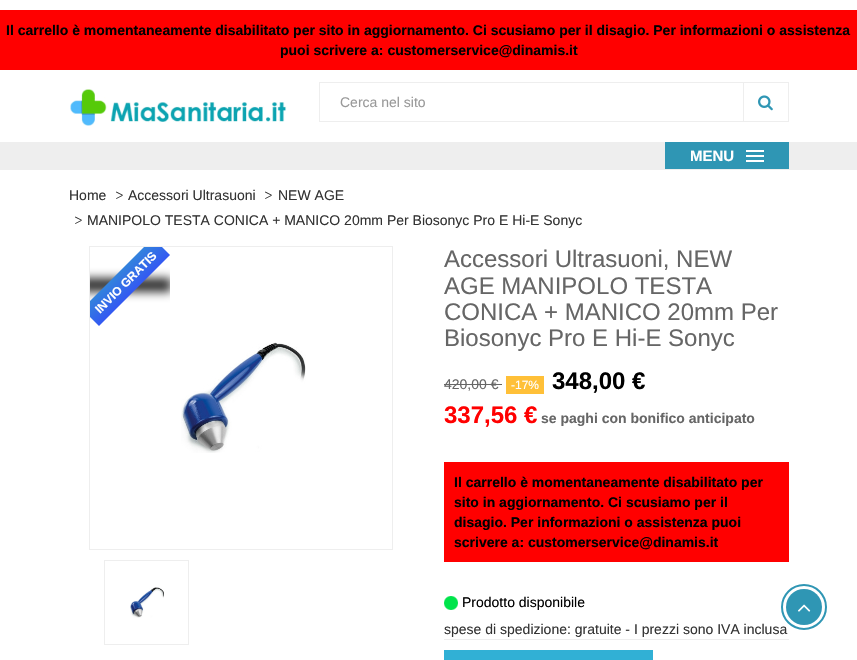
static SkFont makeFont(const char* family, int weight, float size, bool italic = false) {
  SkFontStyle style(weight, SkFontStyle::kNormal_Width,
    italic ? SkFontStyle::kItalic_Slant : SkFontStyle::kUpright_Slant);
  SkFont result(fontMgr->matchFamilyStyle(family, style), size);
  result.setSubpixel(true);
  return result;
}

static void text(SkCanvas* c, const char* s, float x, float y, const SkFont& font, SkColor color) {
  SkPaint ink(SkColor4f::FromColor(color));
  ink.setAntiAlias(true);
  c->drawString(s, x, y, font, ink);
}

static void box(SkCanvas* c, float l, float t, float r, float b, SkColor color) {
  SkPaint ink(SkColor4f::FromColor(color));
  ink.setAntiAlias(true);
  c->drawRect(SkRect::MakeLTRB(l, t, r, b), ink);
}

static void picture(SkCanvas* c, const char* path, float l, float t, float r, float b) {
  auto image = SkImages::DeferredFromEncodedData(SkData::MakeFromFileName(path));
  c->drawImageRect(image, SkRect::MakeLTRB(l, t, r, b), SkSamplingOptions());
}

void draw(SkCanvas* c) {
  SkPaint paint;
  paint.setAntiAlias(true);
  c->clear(0xffffffff);
  box(c, 0, 10, 857, 70, 0xffff0000);
  SkFont face1 = makeFont("Liberation Sans", 700, 14);
  text(c, "Il carrello è momentaneamente disabilitato per sito in aggiornamento. Ci scusiamo per il disagio. Per informazioni o assistenza", 6, 35, face1, 0xff000000);
  text(c, "puoi scrivere a: customerservice@dinamis.it", 280, 55, face1, 0xff000000);
  picture(c, "img_01.png", 70, 89, 287, 126);
  paint.setStyle(SkPaint::kStroke_Style);
  paint.setStrokeWidth(1);
  paint.setColor(0xffeeeeee);
  c->drawRect(SkRect::MakeLTRB(319.5f, 82.5f, 788.5f, 121.5f), paint);
  SkFont face2 = makeFont("Liberation Sans", 400, 14);
  text(c, "Cerca nel sito", 340, 107, face2, 0xff999999);
  paint.setStyle(SkPaint::kFill_Style);
  c->drawPath(SkPathBuilder().moveTo(743, 122).lineTo(743, 82).lineTo(744, 83).lineTo(744, 121).close().detach(), paint);
  picture(c, "img_02.png", 758, 95, 773, 111);
  box(c, 0, 142, 857, 170, 0xffeeeeee);
  box(c, 665, 142, 789, 169, 0xff2f96b4);
  picture(c, "img_03.png", 746, 150, 764, 162);
  SkFont face3 = makeFont("Liberation Sans", 700, 15);
  text(c, "MENU", 690, 161, face3, 0xffffffff);
  text(c, "Home", 69, 200, face2, 0xff333333);
  SkFont face4 = makeFont("Libre Baskerville", 400, 14);
  text(c, ">", 115, 200, face4, 0xff333333);
  text(c, "Accessori Ultrasuoni", 128, 200, face2, 0xff333333);
  text(c, ">", 264, 200, face4, 0xff333333);
  text(c, "NEW AGE", 278, 200, face2, 0xff333333);
  text(c, ">", 74, 225, face4, 0xff333333);
  text(c, "MANIPOLO TESTA CONICA + MANICO 20mm Per Biosonyc Pro E Hi-E Sonyc", 87, 225, face2, 0xff333333);
  paint.setStyle(SkPaint::kStroke_Style);
  c->drawRect(SkRect::MakeLTRB(89.5f, 246.5f, 392.5f, 549.5f), paint);
  c->save();
  c->clipRect(SkRect::MakeLTRB(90, 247, 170, 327));
  paint.setStyle(SkPaint::kFill_Style);
  paint.setColor(0xff333333);
  paint.setMaskFilter(SkMaskFilter::MakeBlur(kNormal_SkBlurStyle, 5));
  c->drawRect(SkRect::MakeLTRB(81, 278, 171, 292), paint);
  paint.setMaskFilter(nullptr);
  c->restore();
  c->save();
  c->clipRect(SkRect::MakeLTRB(90, 247, 170, 327));
  {
    const SkColor colors[] = {0xff3382dd, 0xff3357f3};
    const float stops[] = {0, 1};
    const SkPoint ends[] = {{118, 274}, {135, 291}};
    paint.setShader(SkGradientShader::MakeLinear(ends, colors, stops, 2, SkTileMode::kClamp));
    paint.setAlpha(255);
  }
  c->drawPath(SkPathBuilder().moveTo(82, 309).lineTo(153, 238).lineTo(170, 255).lineTo(99, 326).close().detach(), paint);
  c->restore();
  SkFont face5 = makeFont("Liberation Sans", 700, 12);
  c->save();
  c->rotate(-45, 100, 314);
  text(c, "INVIO GRATIS", 100, 314, face5, 0xffffffff);
  c->restore();
  picture(c, "img_04.png", 181, 342, 306, 453);
  paint.setStyle(SkPaint::kStroke_Style);
  paint.setShader(nullptr);
  paint.setColor(0xffeeeeee);
  c->drawRect(SkRect::MakeLTRB(104.5f, 560.5f, 188.5f, 644.5f), paint);
  picture(c, "img_05.png", 130, 587, 164, 618);
  SkFont face6 = makeFont("Liberation Sans", 400, 24);
  text(c, "Accessori Ultrasuoni, NEW", 444, 267, face6, 0xff666666);
  text(c, "AGE MANIPOLO TESTA", 444, 294, face6, 0xff666666);
  text(c, "CONICA + MANICO 20mm Per", 444, 320, face6, 0xff666666);
  text(c, "Biosonyc Pro E Hi-E Sonyc", 444, 346, face6, 0xff666666);
  text(c, "420,00 €", 444, 389, face2, 0xff666666);
  box(c, 444, 384, 502, 385, 0xff666666);
  box(c, 506, 376, 544, 394, 0xffffc038);
  SkFont face7 = makeFont("Liberation Sans", 400, 12);
  text(c, "-17%", 511, 389, face7, 0xffffffff);
  SkFont face8 = makeFont("Liberation Sans", 700, 24);
  text(c, "348,00 €", 552, 389, face8, 0xff000000);
  text(c, "337,56 €", 444, 423, face8, 0xffff0000);
  text(c, "se paghi con bonifico anticipato", 541, 423, face1, 0xff666666);
  box(c, 444, 462, 789, 562, 0xffff0000);
  text(c, "Il carrello è momentaneamente disabilitato per", 454, 487, face1, 0xff000000);
  text(c, "sito in aggiornamento. Ci scusiamo per il", 454, 507, face1, 0xff000000);
  text(c, "disagio. Per informazioni o assistenza puoi", 454, 527, face1, 0xff000000);
  text(c, "scrivere a: customerservice@dinamis.it", 454, 547, face1, 0xff000000);
  picture(c, "img_06.png", 444, 596, 458, 610);
  text(c, "Prodotto disponibile", 462, 607, face2, 0xff000000);
  text(c, "spese di spedizione: gratuite - I prezzi sono IVA inclusa", 444, 634, face2, 0xff333333);
  box(c, 444, 639, 789, 640, 0xffeeeeee);
  box(c, 444, 650, 653, 660, 0xff31b0d5);
  paint.setStrokeWidth(2);
  paint.setColor(0xff2f96b4);
  c->drawCircle(804, 607, 22, paint);
  paint.setStyle(SkPaint::kFill_Style);
  c->drawCircle(804, 607, 18, paint);
  picture(c, "img_07.png", 798, 604, 811, 612);
}
